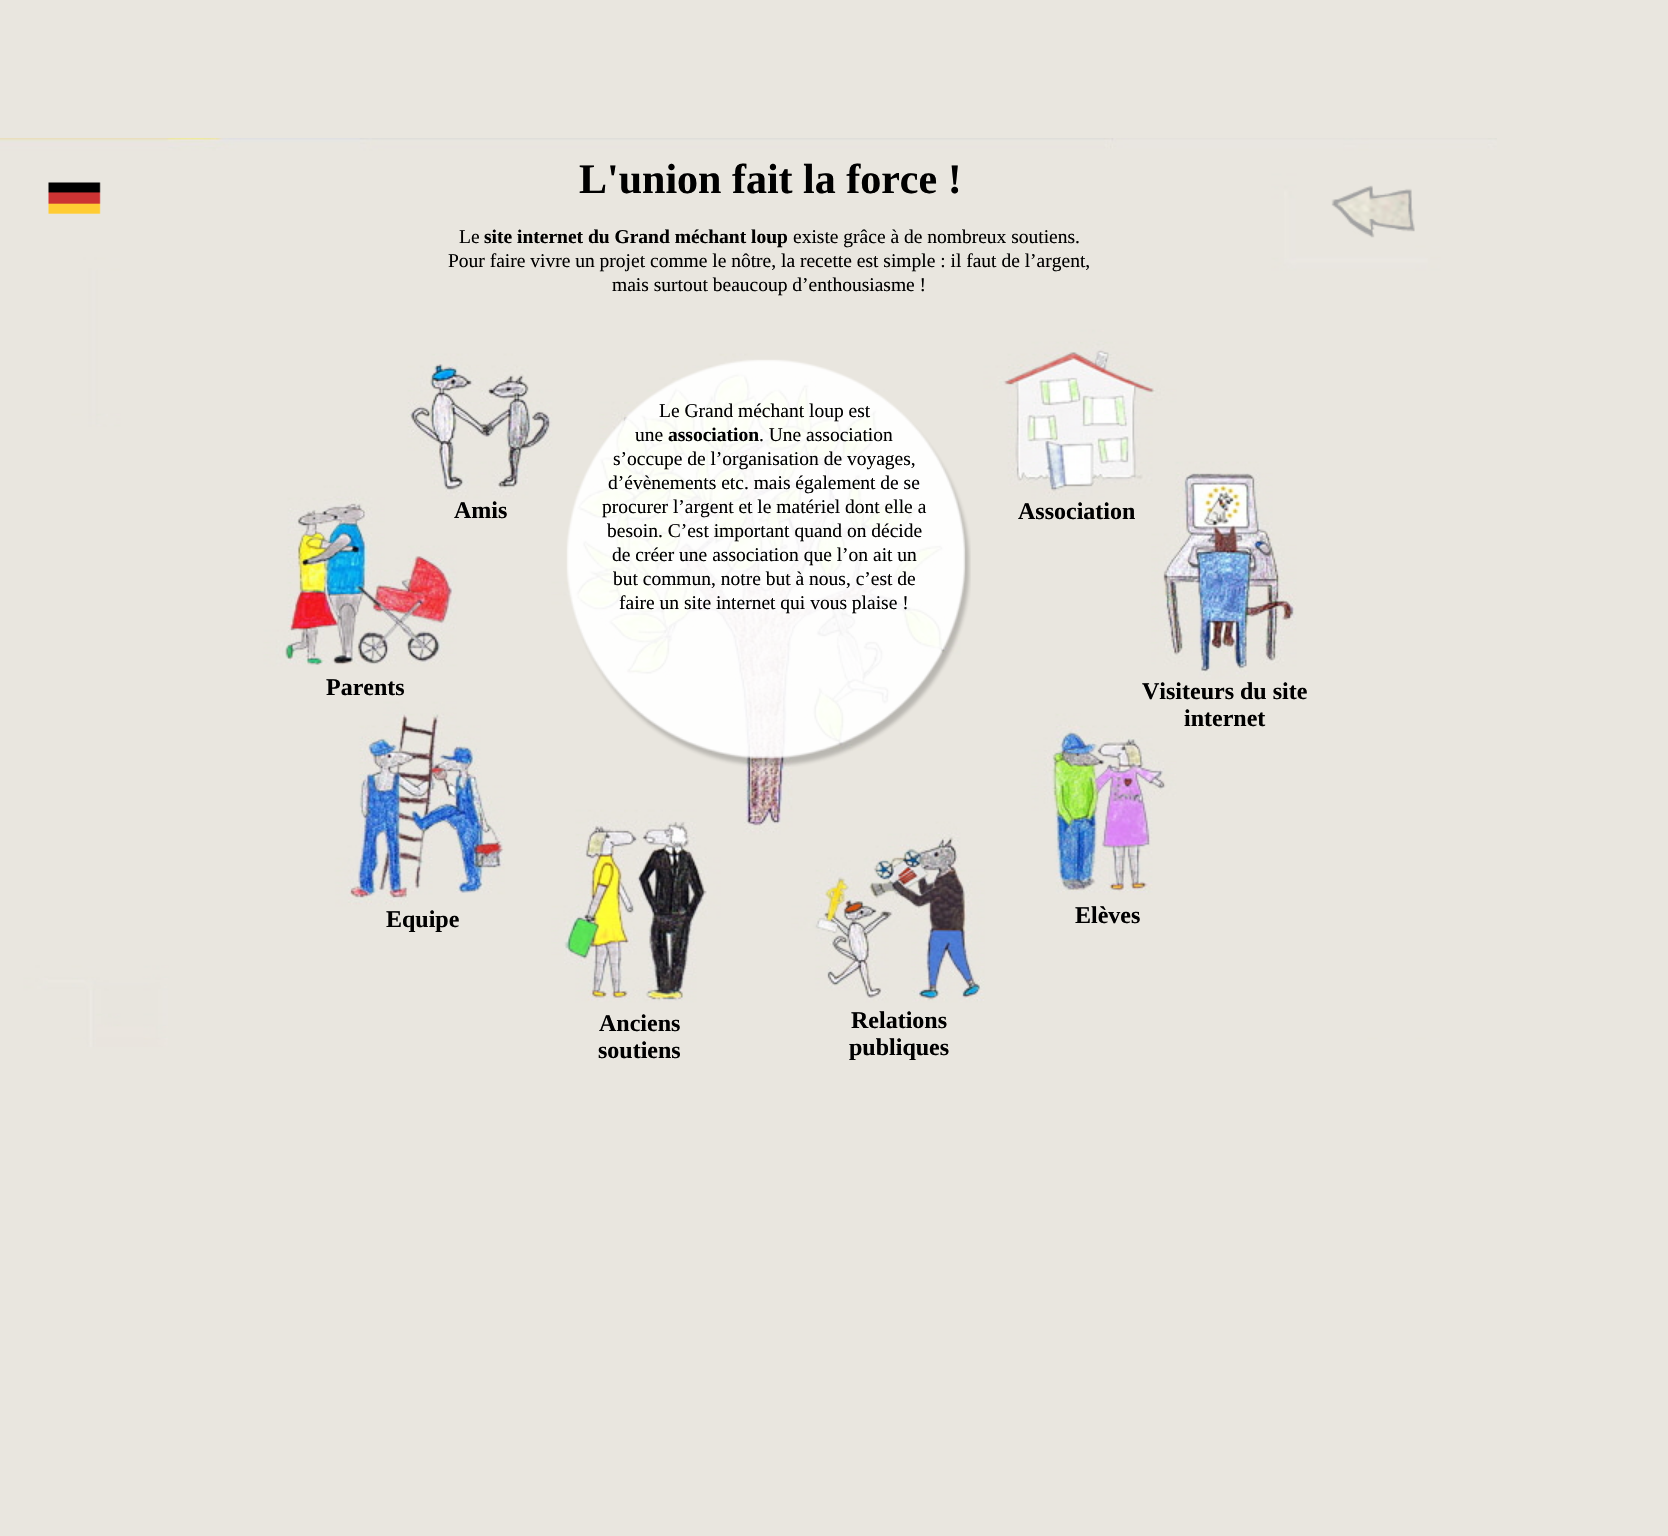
static SkFont makeFont(const char* family, int weight, float size, bool italic = false) {
  SkFontStyle style(weight, SkFontStyle::kNormal_Width,
    italic ? SkFontStyle::kItalic_Slant : SkFontStyle::kUpright_Slant);
  SkFont result(fontMgr->matchFamilyStyle(family, style), size);
  result.setSubpixel(true);
  return result;
}

static void text(SkCanvas* c, const char* s, float x, float y, const SkFont& font, SkColor color) {
  SkPaint ink(SkColor4f::FromColor(color));
  ink.setAntiAlias(true);
  c->drawString(s, x, y, font, ink);
}

static void picture(SkCanvas* c, const char* path, float l, float t, float r, float b) {
  auto image = SkImages::DeferredFromEncodedData(SkData::MakeFromFileName(path));
  c->drawImageRect(image, SkRect::MakeLTRB(l, t, r, b), SkSamplingOptions());
}

void draw(SkCanvas* c) {
  SkPaint paint;
  paint.setAntiAlias(true);
  c->clear(0xffe9e6df);
  picture(c, "img_01.png", 0, 138, 1497, 1047);
  SkFont face1 = makeFont("Liberation Serif", 700, 42);
  text(c, "L'union fait la force !", 579, 193, face1, 0xff000000);
  picture(c, "img_02.png", 48, 182, 101, 214);
  picture(c, "img_03.png", 1331, 185, 1415, 238);
  SkFont face2 = makeFont("Liberation Serif", 400, 19.5f);
  text(c, "Le", 459, 243, face2, 0xff000000);
  SkFont face3 = makeFont("Liberation Serif", 700, 19.5f);
  text(c, "site internet du Grand méchant loup", 484, 243, face3, 0xff000000);
  text(c, "existe grâce à de nombreux soutiens.", 793, 243, face2, 0xff000000);
  text(c, "Pour faire vivre un projet comme le nôtre, la recette est simple : il faut de l’argent,", 448, 267, face2, 0xff000000);
  text(c, "mais surtout beaucoup d’enthousiasme !", 612, 291, face2, 0xff000000);
  picture(c, "img_04.png", 566, 359, 971, 767);
  SkFont face4 = makeFont("Liberation Serif", 700, 24);
  text(c, "Amis", 454, 518, face4, 0xff000000);
  text(c, "Le Grand méchant loup est", 659, 417, face2, 0xff000000);
  text(c, "une", 635, 441, face2, 0xff000000);
  text(c, "association", 668, 441, face3, 0xff000000);
  text(c, ". Une association", 759, 441, face2, 0xff000000);
  text(c, "s’occupe de l’organisation de voyages,", 613, 465, face2, 0xff000000);
  text(c, "d’évènements etc. mais également de se", 608, 489, face2, 0xff000000);
  text(c, "procurer l’argent et le matériel dont elle a", 602, 513, face2, 0xff000000);
  text(c, "besoin. C’est important quand on décide", 607, 537, face2, 0xff000000);
  text(c, "de créer une association que l’on ait un", 612, 561, face2, 0xff000000);
  text(c, "but commun, notre but à nous, c’est de", 613, 585, face2, 0xff000000);
  text(c, "faire un site internet qui vous plaise !", 619, 609, face2, 0xff000000);
  text(c, "Association", 1018, 519, face4, 0xff000000);
  text(c, "Parents", 326, 695, face4, 0xff000000);
  text(c, "Visiteurs du site", 1142, 699, face4, 0xff000000);
  text(c, "internet", 1184, 726, face4, 0xff000000);
  text(c, "Equipe", 386, 927, face4, 0xff000000);
  text(c, "Elèves", 1075, 923, face4, 0xff000000);
  text(c, "Anciens", 599, 1031, face4, 0xff000000);
  text(c, "soutiens", 598, 1058, face4, 0xff000000);
  text(c, "Relations", 851, 1028, face4, 0xff000000);
  text(c, "publiques", 849, 1055, face4, 0xff000000);
}
